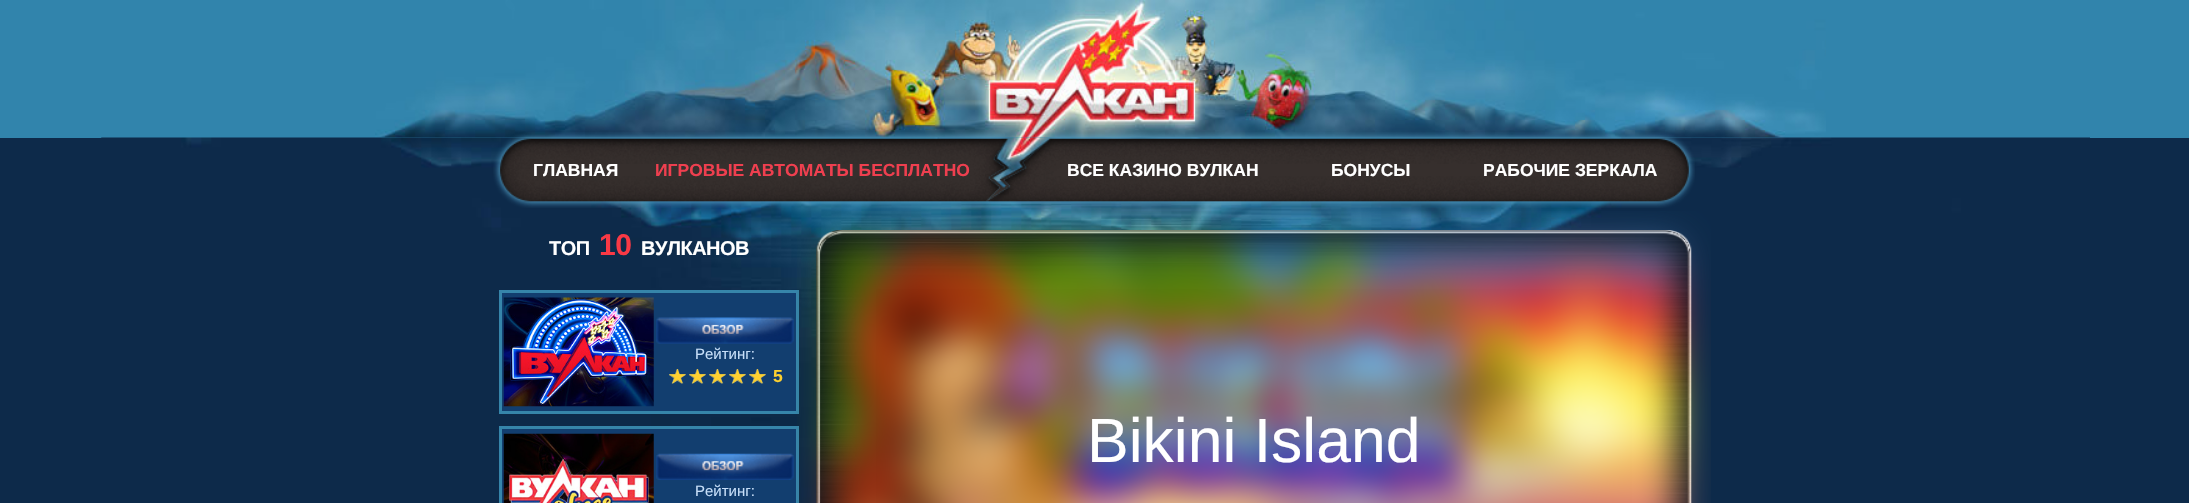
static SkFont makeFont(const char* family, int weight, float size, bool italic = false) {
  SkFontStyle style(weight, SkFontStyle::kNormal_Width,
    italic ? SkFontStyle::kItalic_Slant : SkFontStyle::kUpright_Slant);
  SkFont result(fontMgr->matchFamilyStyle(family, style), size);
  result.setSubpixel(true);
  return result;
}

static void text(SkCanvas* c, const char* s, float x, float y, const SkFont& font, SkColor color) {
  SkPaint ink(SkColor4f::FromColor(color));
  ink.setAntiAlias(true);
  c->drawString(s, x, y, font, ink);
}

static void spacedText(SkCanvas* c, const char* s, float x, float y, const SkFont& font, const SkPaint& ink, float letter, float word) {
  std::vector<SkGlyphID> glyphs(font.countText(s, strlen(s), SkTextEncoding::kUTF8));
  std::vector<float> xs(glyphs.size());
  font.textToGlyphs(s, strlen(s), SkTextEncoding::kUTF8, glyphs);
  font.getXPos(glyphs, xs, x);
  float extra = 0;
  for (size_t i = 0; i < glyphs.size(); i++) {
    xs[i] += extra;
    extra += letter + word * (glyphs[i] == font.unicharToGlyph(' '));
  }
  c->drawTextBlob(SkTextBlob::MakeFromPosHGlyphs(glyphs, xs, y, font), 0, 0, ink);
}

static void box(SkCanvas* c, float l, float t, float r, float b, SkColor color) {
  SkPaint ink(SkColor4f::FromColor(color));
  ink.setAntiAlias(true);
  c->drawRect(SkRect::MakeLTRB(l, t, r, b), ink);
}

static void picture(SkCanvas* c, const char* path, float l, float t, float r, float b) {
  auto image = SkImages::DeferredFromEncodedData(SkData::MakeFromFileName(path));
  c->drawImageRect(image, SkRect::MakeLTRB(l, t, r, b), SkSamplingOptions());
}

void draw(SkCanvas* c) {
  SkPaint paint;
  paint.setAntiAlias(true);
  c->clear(0xff3184ac);
  picture(c, "img_01.png", 375, 0, 1826, 138);
  box(c, 0, 138, 2189, 503, 0xff0d2a4a);
  picture(c, "img_02.png", 101, 137, 2090, 503);
  picture(c, "img_03.png", 493, 132, 1695, 208);
  SkFont face1 = makeFont("Liberation Sans", 700, 17.5f);
  text(c, "ГЛАВНАЯ", 533, 176, face1, 0xffffffff);
  text(c, "ИГРОВЫЕ АВТОМАТЫ БЕСПЛАТНО", 655, 176, face1, 0xffef3f4f);
  text(c, "ВСЕ КАЗИНО ВУЛКАН", 1067, 176, face1, 0xffffffff);
  text(c, "БОНУСЫ", 1331, 176, face1, 0xffffffff);
  text(c, "РАБОЧИЕ ЗЕРКАЛА", 1483, 176, face1, 0xffffffff);
  SkFont face2 = makeFont("Liberation Sans", 700, 20);
  paint.setColor(0xffffffff);
  spacedText(c, "ТОП", 549, 255, face2, paint, -0.5f, 0);
  SkFont face3 = makeFont("Liberation Sans", 700, 30);
  paint.setColor(0xfff93945);
  spacedText(c, "10", 599, 255, face3, paint, -0.5f, 0);
  paint.setColor(0xffffffff);
  spacedText(c, "ВУЛКАНОВ", 641, 255, face2, paint, -0.5f, 0);
  paint.setColor(0xff123e6f);
  c->drawRect(SkRect::MakeLTRB(500.5f, 291.5f, 797.5f, 412.5f), paint);
  paint.setStyle(SkPaint::kStroke_Style);
  paint.setStrokeWidth(3);
  paint.setColor(0xff3685aa);
  c->drawRect(SkRect::MakeLTRB(500.5f, 291.5f, 797.5f, 412.5f), paint);
  picture(c, "img_04.png", 503, 297, 654, 407);
  picture(c, "img_05.png", 656, 317, 794, 344);
  SkFont face4 = makeFont("Liberation Sans", 400, 15);
  text(c, "Рейтинг:", 695, 359, face4, 0xffc6def8);
  picture(c, "img_06.png", 669, 369, 766, 384);
  picture(c, "img_07.png", 669, 369, 766, 384);
  text(c, "5", 773, 382, face1, 0xfffdd02f);
  paint.setStyle(SkPaint::kFill_Style);
  paint.setColor(0xff123e6f);
  c->drawRect(SkRect::MakeLTRB(500.5f, 427.5f, 797.5f, 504.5f), paint);
  paint.setStyle(SkPaint::kStroke_Style);
  paint.setColor(0xff3685aa);
  c->drawRect(SkRect::MakeLTRB(500.5f, 427.5f, 797.5f, 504.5f), paint);
  picture(c, "img_08.png", 503, 433, 654, 503);
  picture(c, "img_09.png", 656, 453, 794, 480);
  text(c, "Рейтинг:", 695, 496, face4, 0xffc6def8);
  picture(c, "img_10.png", 816, 230, 1692, 503);
  picture(c, "img_11.png", 797, 211, 1711, 503);
  SkFont face5 = makeFont("Liberation Sans", 400, 62.5f);
  text(c, "Bikini Island", 1087, 462, face5, 0xffffffff);
}
